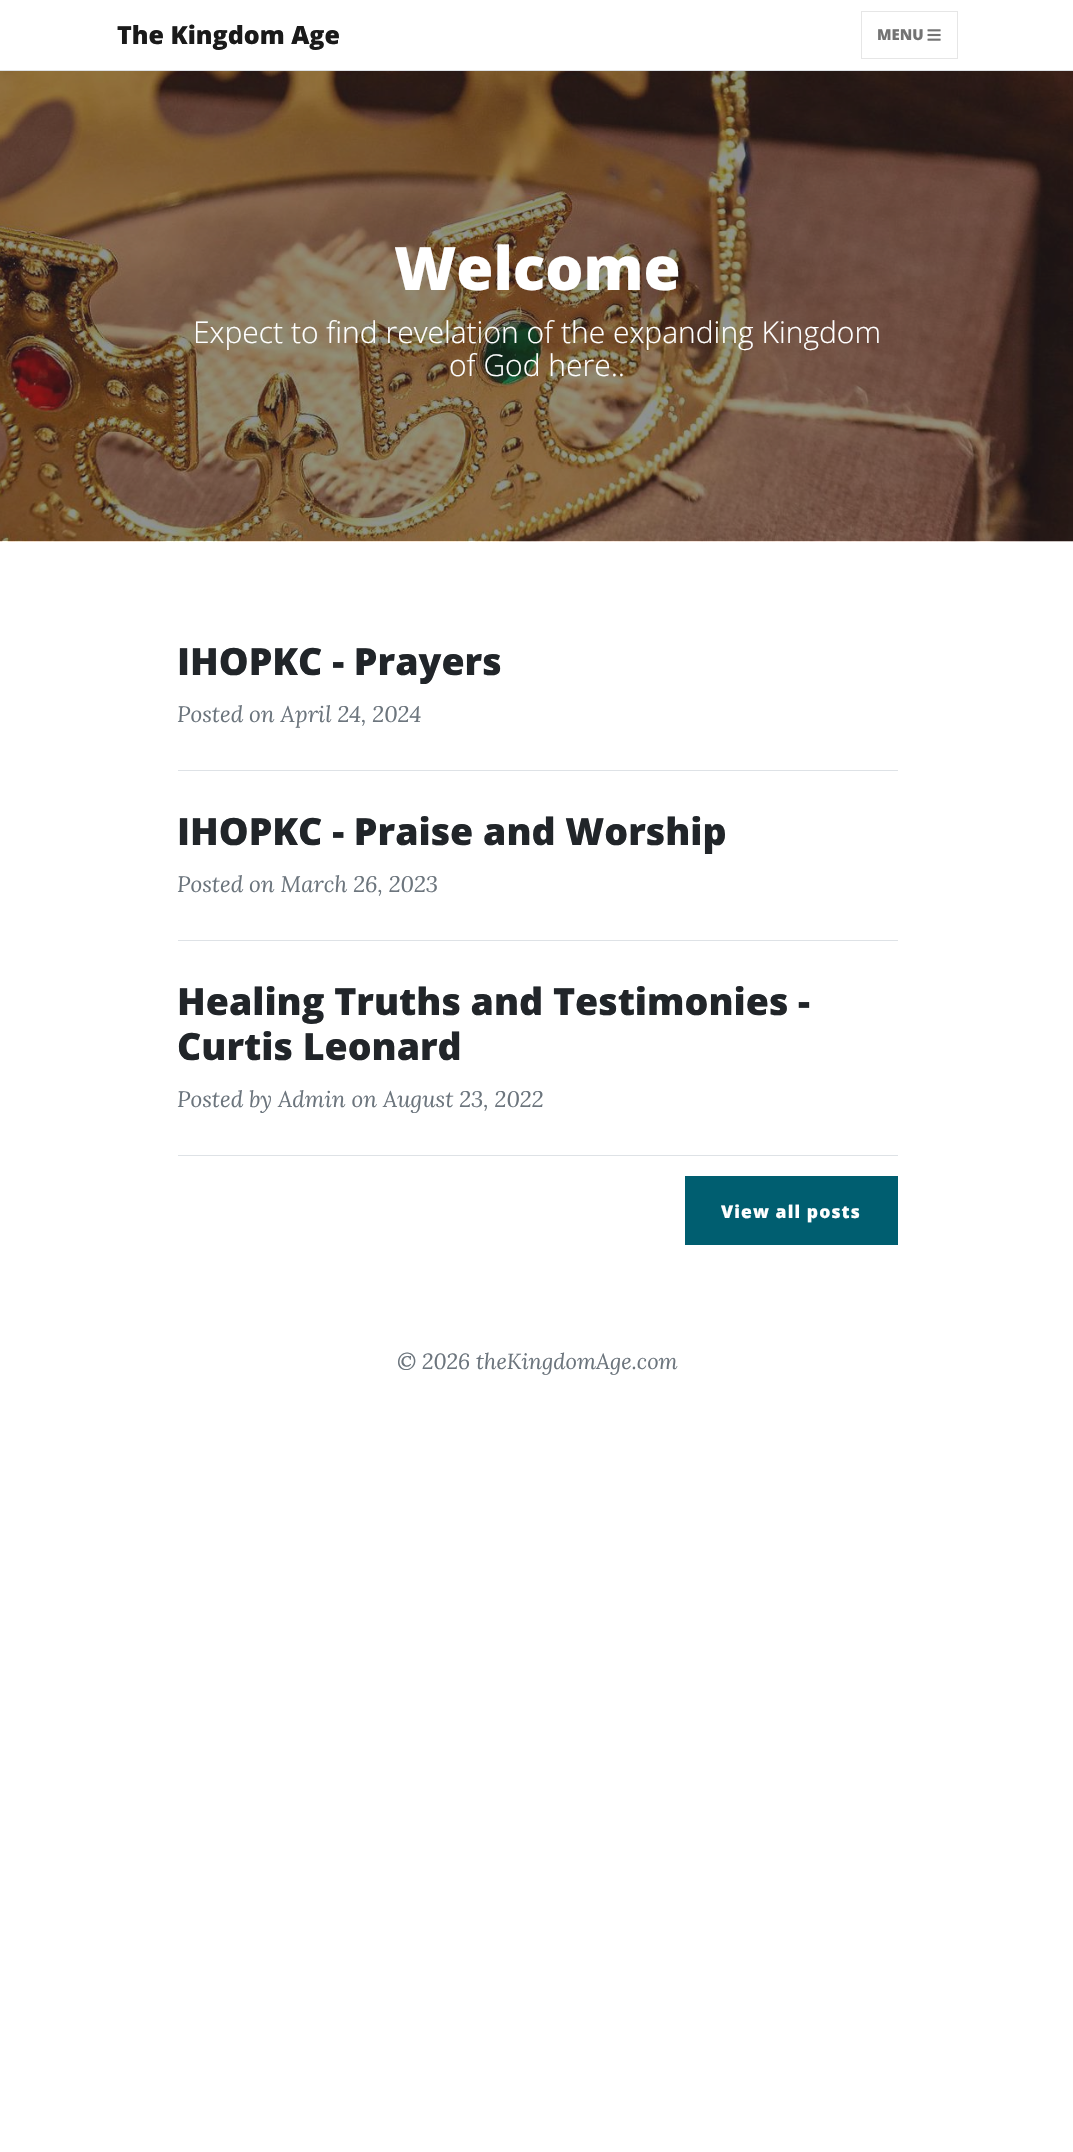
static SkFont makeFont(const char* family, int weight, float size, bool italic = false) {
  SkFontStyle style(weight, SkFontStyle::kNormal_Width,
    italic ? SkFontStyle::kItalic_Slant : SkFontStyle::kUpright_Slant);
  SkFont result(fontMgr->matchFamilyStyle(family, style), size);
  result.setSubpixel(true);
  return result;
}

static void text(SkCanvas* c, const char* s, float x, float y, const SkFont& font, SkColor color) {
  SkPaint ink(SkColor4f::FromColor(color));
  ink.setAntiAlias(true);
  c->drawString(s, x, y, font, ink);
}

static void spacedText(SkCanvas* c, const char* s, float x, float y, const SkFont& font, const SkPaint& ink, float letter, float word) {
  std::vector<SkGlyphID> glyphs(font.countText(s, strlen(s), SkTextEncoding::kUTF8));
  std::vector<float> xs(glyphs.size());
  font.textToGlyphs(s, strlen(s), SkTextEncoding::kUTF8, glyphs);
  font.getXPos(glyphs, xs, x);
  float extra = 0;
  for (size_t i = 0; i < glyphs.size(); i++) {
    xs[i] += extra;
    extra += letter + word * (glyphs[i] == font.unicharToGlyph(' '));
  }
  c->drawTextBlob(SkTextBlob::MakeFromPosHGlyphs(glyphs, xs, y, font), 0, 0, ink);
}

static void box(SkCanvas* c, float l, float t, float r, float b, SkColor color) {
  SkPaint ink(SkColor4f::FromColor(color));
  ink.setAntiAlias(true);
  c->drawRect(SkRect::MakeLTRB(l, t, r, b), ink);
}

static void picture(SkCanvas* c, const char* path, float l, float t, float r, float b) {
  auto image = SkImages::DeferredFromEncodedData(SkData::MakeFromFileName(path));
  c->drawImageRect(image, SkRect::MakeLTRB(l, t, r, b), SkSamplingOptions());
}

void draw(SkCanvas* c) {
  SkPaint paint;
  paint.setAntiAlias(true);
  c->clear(0xffffffff);
  box(c, 0, 70, 1073, 71, 0xffdee2e6);
  SkFont face1 = makeFont("Open Sans", 800, 25);
  text(c, "The Kingdom Age", 117, 44, face1, 0xff1a1a1a);
  paint.setStyle(SkPaint::kStroke_Style);
  paint.setStrokeWidth(1);
  paint.setColor(0xffe6e6e6);
  c->drawRect(SkRect::MakeLTRB(861.5f, 11.5f, 957.5f, 58.5f), paint);
  SkFont face2 = makeFont("Open Sans", 800, 15);
  text(c, "MENU", 877, 40, face2, 0xff737373);
  picture(c, "img_01.png", 927, 29, 941, 41);
  picture(c, "img_02.png", 0, 71, 1073, 542);
  SkFont face3 = makeFont("Open Sans", 800, 60);
  text(c, "Welcome", 394, 290, face3, 0xffffffff);
  SkFont face4 = makeFont("Open Sans", 300, 30);
  text(c, "Expect to find revelation of the expanding Kingdom", 193, 343, face4, 0xffffffff);
  text(c, "of God here..", 449, 376, face4, 0xffffffff);
  SkFont face5 = makeFont("Open Sans", 800, 37.5f);
  text(c, "IHOPKC - Prayers", 177, 675, face5, 0xff212529);
  SkFont face6 = makeFont("Lora", 400, 22.5f, true);
  text(c, "Posted on April 24, 2024", 177, 722, face6, 0xff6c757d);
  box(c, 178, 770, 898, 771, 0xffdee2e6);
  text(c, "IHOPKC - Praise and Worship", 177, 845, face5, 0xff212529);
  text(c, "Posted on March 26, 2023", 177, 892, face6, 0xff6c757d);
  box(c, 178, 940, 898, 941, 0xffdee2e6);
  text(c, "Healing Truths and Testimonies -", 177, 1015, face5, 0xff212529);
  text(c, "Curtis Leonard", 177, 1060, face5, 0xff212529);
  text(c, "Posted by Admin on August 23, 2022", 177, 1107, face6, 0xff6c757d);
  box(c, 178, 1155, 898, 1156, 0xffdee2e6);
  box(c, 685, 1176, 898, 1245, 0xff005e70);
  SkFont face7 = makeFont("Open Sans", 800, 17.5f);
  paint.setStyle(SkPaint::kFill_Style);
  paint.setColor(0xffffffff);
  spacedText(c, "View all posts", 721, 1218, face7, paint, 1.1f, 0);
  SkFont face8 = makeFont("Lora", 400, 21.9f, true);
  text(c, "© 2026 theKingdomAge.com", 397, 1369, face8, 0xff6c757d);
}
